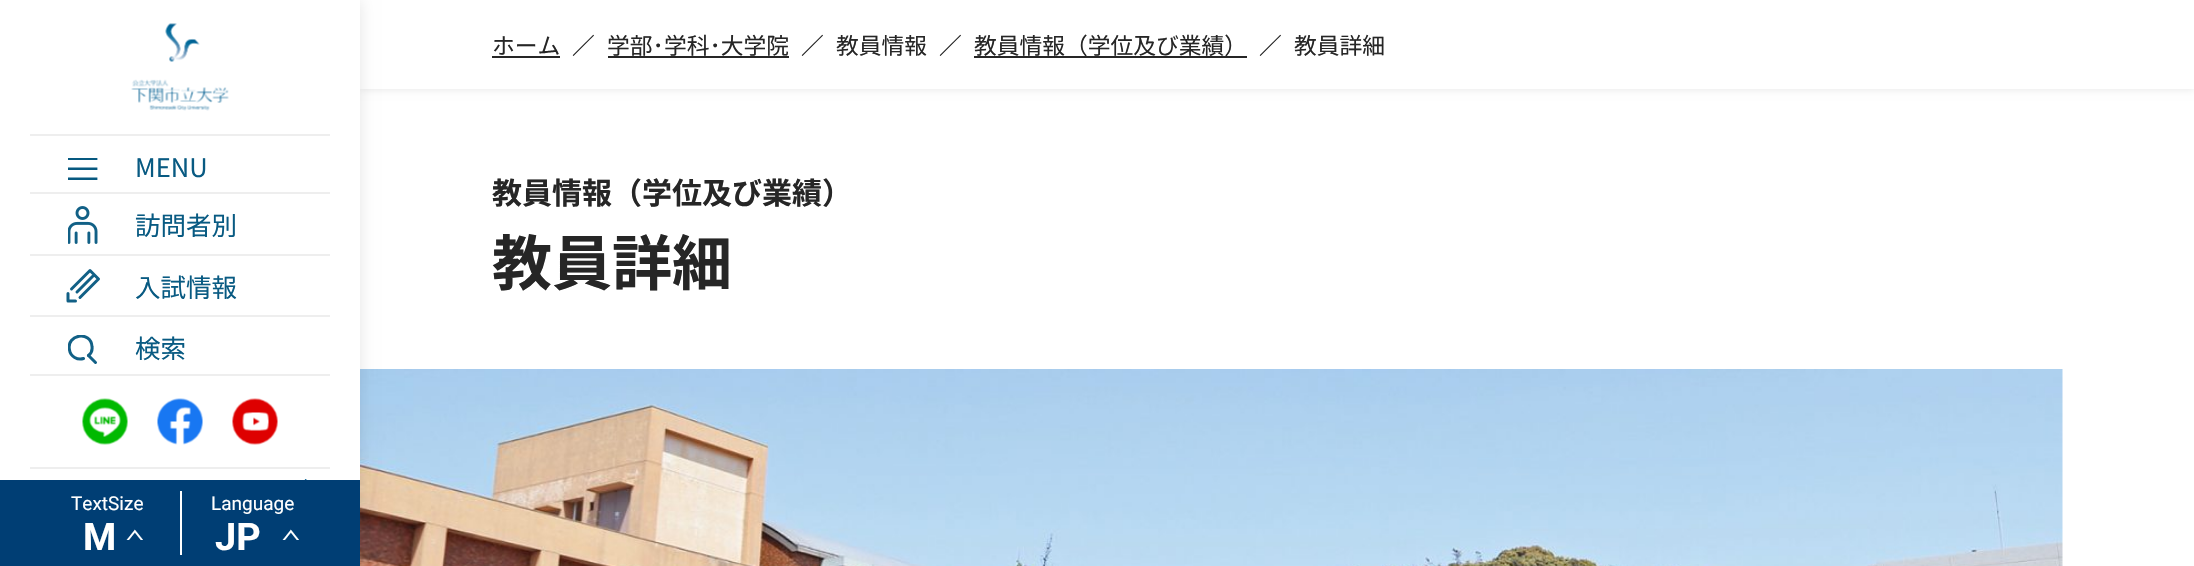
static SkFont makeFont(const char* family, int weight, float size, bool italic = false) {
  SkFontStyle style(weight, SkFontStyle::kNormal_Width,
    italic ? SkFontStyle::kItalic_Slant : SkFontStyle::kUpright_Slant);
  SkFont result(fontMgr->matchFamilyStyle(family, style), size);
  result.setSubpixel(true);
  return result;
}

static void text(SkCanvas* c, const char* s, float x, float y, const SkFont& font, SkColor color) {
  SkPaint ink(SkColor4f::FromColor(color));
  ink.setAntiAlias(true);
  c->drawString(s, x, y, font, ink);
}

static void box(SkCanvas* c, float l, float t, float r, float b, SkColor color) {
  SkPaint ink(SkColor4f::FromColor(color));
  ink.setAntiAlias(true);
  c->drawRect(SkRect::MakeLTRB(l, t, r, b), ink);
}

static void picture(SkCanvas* c, const char* path, float l, float t, float r, float b) {
  auto image = SkImages::DeferredFromEncodedData(SkData::MakeFromFileName(path));
  c->drawImageRect(image, SkRect::MakeLTRB(l, t, r, b), SkSamplingOptions());
}

void draw(SkCanvas* c) {
  SkPaint paint;
  paint.setAntiAlias(true);
  c->clear(0xffffffff);
  paint.setColor(0x1a000000);
  paint.setMaskFilter(SkMaskFilter::MakeBlur(kNormal_SkBlurStyle, 4));
  c->drawRect(SkRect::MakeLTRB(360, 0, 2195, 89), paint);
  paint.setMaskFilter(nullptr);
  box(c, 360, 0, 2194, 89, 0xffffffff);
  picture(c, "img_09.png", 360, 369, 2063, 566);
  paint.setMaskFilter(SkMaskFilter::MakeBlur(kNormal_SkBlurStyle, 7.5f));
  c->drawRect(SkRect::MakeLTRB(0, 0, 360, 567), paint);
  paint.setMaskFilter(nullptr);
  box(c, 0, 0, 360, 480, 0xffffffff);
  picture(c, "img_01.png", 165, 23, 200, 62);
  picture(c, "img_02.png", 131, 79, 229, 111);
  box(c, 30, 134, 330, 136, 0xffeeeeee);
  picture(c, "img_03.png", 68, 158, 98, 180);
  SkFont face1 = makeFont("Noto Sans JP", 400, 25.5f);
  text(c, "MENU", 135, 177, face1, 0xff085a82);
  box(c, 30, 192, 330, 194, 0xffeeeeee);
  picture(c, "img_04.png", 68, 206, 98, 244);
  text(c, "訪問者別", 135, 235, face1, 0xff085a82);
  box(c, 30, 254, 330, 256, 0xffeeeeee);
  paint.setStyle(SkPaint::kStroke_Style);
  paint.setStrokeWidth(3);
  paint.setStrokeCap(SkPaint::kRound_Cap);
  paint.setStrokeJoin(SkPaint::kRound_Join);
  paint.setColor(0xff116086);
  c->drawPath(SkPathBuilder().moveTo(71.5f, 289).lineTo(90, 270.5f).lineTo(98.5f, 279).lineTo(80, 297.5f).moveTo(94, 275).lineTo(77, 292).moveTo(68, 293.5f).lineTo(68, 301).lineTo(75.5f, 301).detach(), paint);
  text(c, "入試情報", 135, 297, face1, 0xff085a82);
  box(c, 30, 315, 330, 317, 0xffeeeeee);
  c->save();
  c->clipRect(SkRect::MakeLTRB(68, 335, 98, 365));
  c->drawPath(SkPathBuilder().moveTo(83.5f, 358.5f).cubicTo(77.5f, 360.5f, 70.5f, 356.5f, 69.5f, 350).cubicTo(66, 334, 91, 330.5f, 92, 346.5f).cubicTo(92.5f, 350, 91, 353.5f, 88.5f, 355.5f).detach(), paint);
  c->restore();
  c->drawPath(SkPathBuilder().moveTo(95.5f, 362.5f).lineTo(88.5f, 355.5f).detach(), paint);
  text(c, "検索", 135, 358, face1, 0xff085a82);
  box(c, 30, 374, 330, 376, 0xffeeeeee);
  picture(c, "img_05.png", 82, 398, 128, 445);
  picture(c, "img_06.png", 157, 398, 203, 445);
  picture(c, "img_07.png", 232, 398, 278, 445);
  box(c, 30, 467, 330, 469, 0xffeeeeee);
  picture(c, "img_08.png", 304, 479, 307, 480);
  box(c, 0, 480, 360, 566, 0xff003e74);
  SkFont face2 = makeFont("Roboto", 400, 19);
  text(c, "TextSize", 71, 510, face2, 0xffffffff);
  SkFont face3 = makeFont("Roboto", 700, 38);
  text(c, "M", 83, 550, face3, 0xffffffff);
  SkFont face4 = makeFont("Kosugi", 400, 24);
  c->save();
  c->rotate(-90, 144, 541);
  text(c, ">", 144, 541, face4, 0xffffffff);
  c->restore();
  box(c, 180, 491, 182, 555, 0xffffffff);
  text(c, "Language", 211, 510, face2, 0xffffffff);
  text(c, "JP", 215, 550, face3, 0xffffffff);
  c->save();
  c->rotate(-90, 300, 541);
  text(c, ">", 300, 541, face4, 0xffffffff);
  c->restore();
  SkFont face5 = makeFont("Noto Sans JP", 400, 22.75f);
  text(c, "ホーム", 492, 54, face5, 0xff262626);
  box(c, 492, 56, 560, 58, 0xff262626);
  text(c, "／", 572, 54, face5, 0xff262626);
  text(c, "学部･学科･大学院", 607, 54, face5, 0xff262626);
  box(c, 608, 56, 789, 58, 0xff262626);
  text(c, "／", 801, 54, face5, 0xff262626);
  text(c, "教員情報", 836, 54, face5, 0xff262626);
  text(c, "／", 939, 54, face5, 0xff262626);
  box(c, 974, 56, 1247, 58, 0xff262626);
  text(c, "教員情報（学位及び業績）", 974, 54, face5, 0xff262626);
  text(c, "／", 1259, 54, face5, 0xff262626);
  text(c, "教員詳細", 1294, 54, face5, 0xff262626);
  SkFont face6 = makeFont("Noto Sans JP", 700, 30);
  text(c, "教員情報（学位及び業績）", 492, 204, face6, 0xff262626);
  SkFont face7 = makeFont("Noto Sans JP", 700, 60);
  text(c, "教員詳細", 492, 285, face7, 0xff262626);
}
